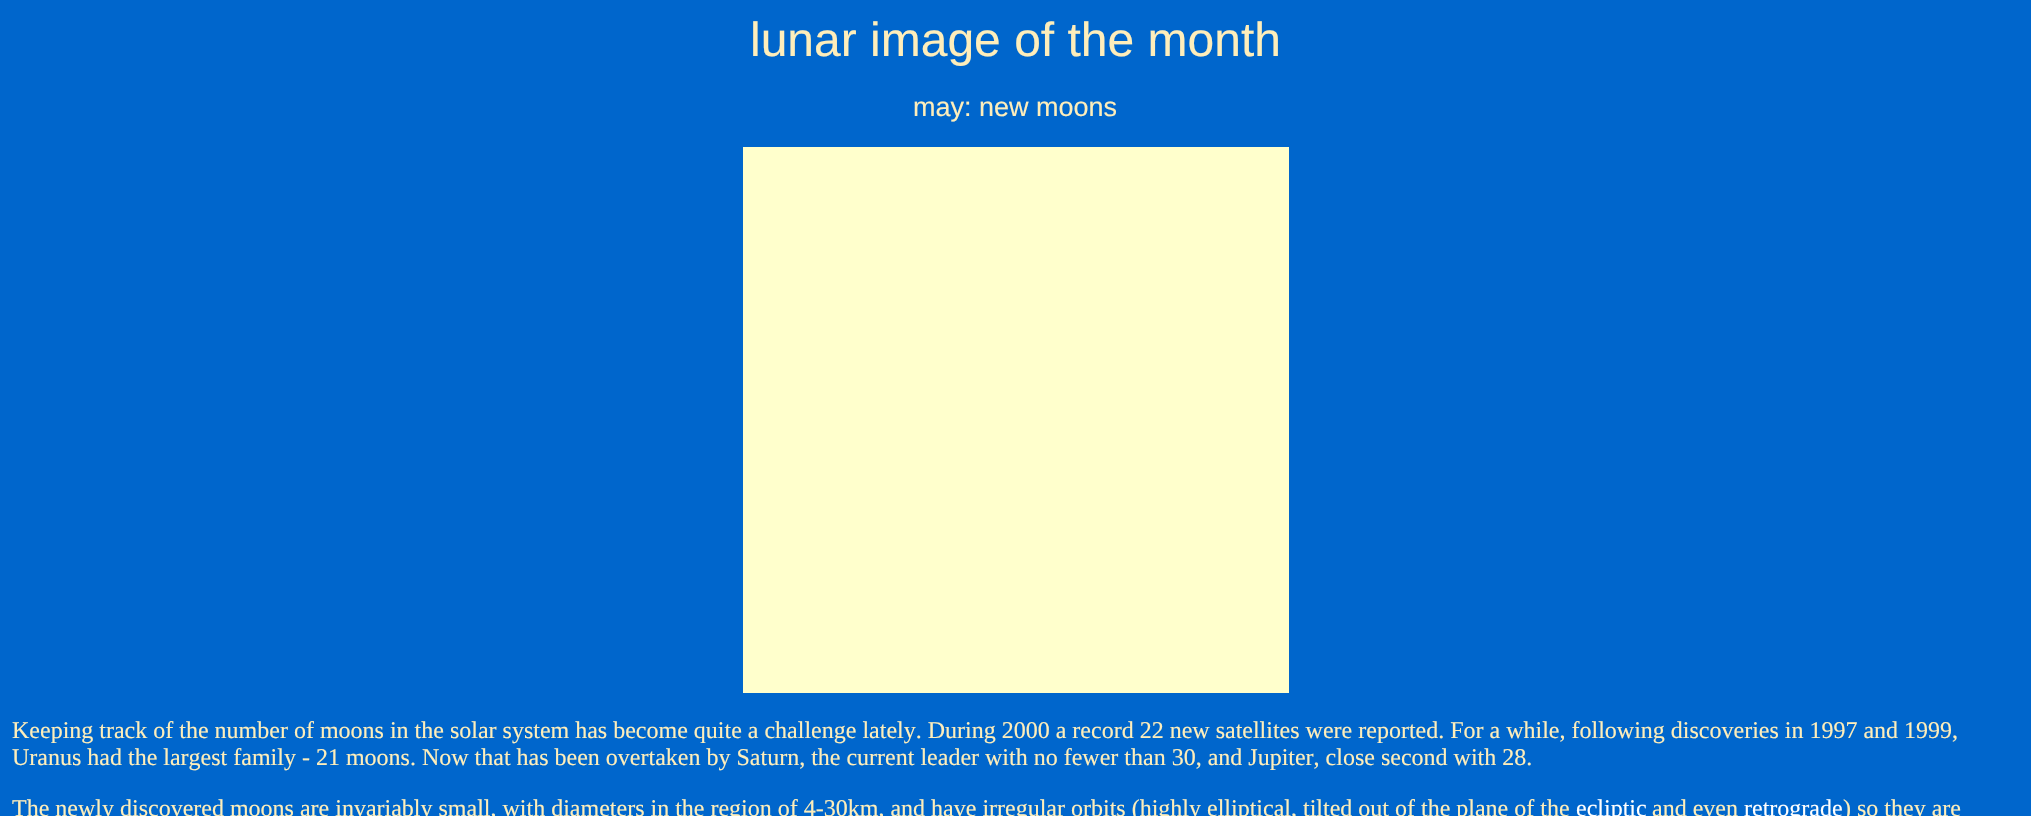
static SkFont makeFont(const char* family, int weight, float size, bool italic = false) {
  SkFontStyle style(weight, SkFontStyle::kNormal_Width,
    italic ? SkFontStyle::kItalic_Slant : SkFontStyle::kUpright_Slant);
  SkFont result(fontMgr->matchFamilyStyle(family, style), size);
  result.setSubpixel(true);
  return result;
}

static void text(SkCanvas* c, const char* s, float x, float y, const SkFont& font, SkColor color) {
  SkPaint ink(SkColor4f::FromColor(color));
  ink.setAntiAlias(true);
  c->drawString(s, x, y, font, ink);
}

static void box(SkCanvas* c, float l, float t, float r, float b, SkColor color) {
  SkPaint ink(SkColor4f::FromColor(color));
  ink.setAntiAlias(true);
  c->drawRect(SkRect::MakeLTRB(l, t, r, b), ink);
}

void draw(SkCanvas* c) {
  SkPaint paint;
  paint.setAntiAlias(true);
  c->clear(0xff0066cc);
  SkFont face1 = makeFont("Liberation Sans", 400, 48);
  text(c, "lunar image of the month", 750, 56, face1, 0xfffeeebb);
  SkFont face2 = makeFont("Liberation Sans", 400, 27);
  text(c, "may: new moons", 913, 116, face2, 0xfffeeebb);
  box(c, 743, 147, 1289, 693, 0xffffffcc);
  SkFont face3 = makeFont("Liberation Serif", 400, 24);
  text(c, "Keeping track of the number of moons in the solar system has become quite a challenge lately. During 2000 a record 22 new satellites were reported. For a while, following discoveries in 1997 and 1999,", 12, 738, face3, 0xfffeeebb);
  text(c, "Uranus had the largest family - 21 moons. Now that has been overtaken by Saturn, the current leader with no fewer than 30, and Jupiter, close second with 28.", 12, 765, face3, 0xfffeeebb);
  text(c, "The newly discovered moons are invariably small, with diameters in the region of 4-30km, and have irregular orbits (highly elliptical, tilted out of the plane of the", 12, 816, face3, 0xfffeeebb);
  text(c, "ecliptic", 1576, 816, face3, 0xffffffff);
  text(c, "and even", 1652, 816, face3, 0xfffeeebb);
  text(c, "retrograde", 1744, 816, face3, 0xffffffff);
  text(c, ") so they are", 1843, 816, face3, 0xfffeeebb);
}
